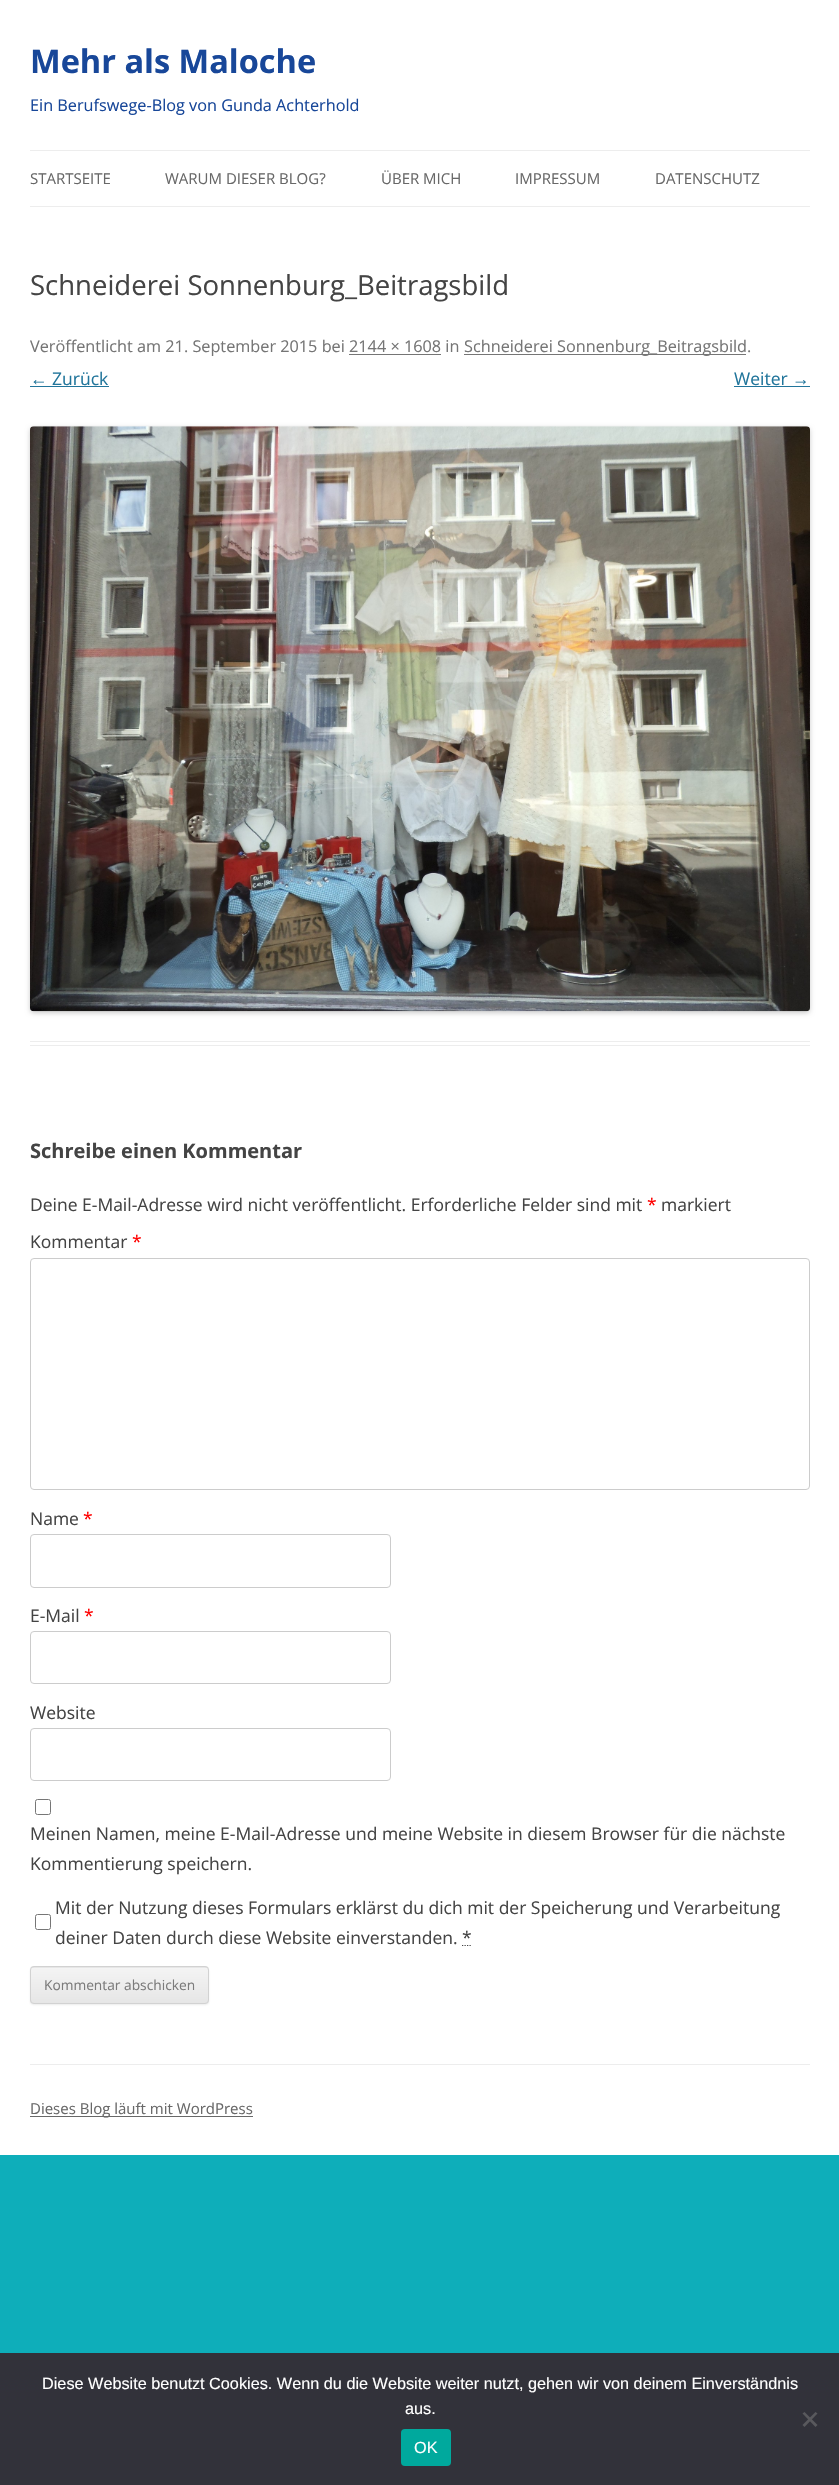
static SkFont makeFont(const char* family, int weight, float size, bool italic = false) {
  SkFontStyle style(weight, SkFontStyle::kNormal_Width,
    italic ? SkFontStyle::kItalic_Slant : SkFontStyle::kUpright_Slant);
  SkFont result(fontMgr->matchFamilyStyle(family, style), size);
  result.setSubpixel(true);
  return result;
}

static void text(SkCanvas* c, const char* s, float x, float y, const SkFont& font, SkColor color) {
  SkPaint ink(SkColor4f::FromColor(color));
  ink.setAntiAlias(true);
  c->drawString(s, x, y, font, ink);
}

static void box(SkCanvas* c, float l, float t, float r, float b, SkColor color) {
  SkPaint ink(SkColor4f::FromColor(color));
  ink.setAntiAlias(true);
  c->drawRect(SkRect::MakeLTRB(l, t, r, b), ink);
}

static void roundBox(SkCanvas* c, float l, float t, float r, float b, float radius, SkColor color) {
  SkPaint ink(SkColor4f::FromColor(color));
  ink.setAntiAlias(true);
  c->drawRoundRect(SkRect::MakeLTRB(l, t, r, b), radius, radius, ink);
}

static void picture(SkCanvas* c, const char* path, float l, float t, float r, float b) {
  auto image = SkImages::DeferredFromEncodedData(SkData::MakeFromFileName(path));
  c->drawImageRect(image, SkRect::MakeLTRB(l, t, r, b), SkSamplingOptions());
}

void draw(SkCanvas* c) {
  SkPaint paint;
  paint.setAntiAlias(true);
  c->clear(0xff0eaeba);
  box(c, 0, 0, 839, 2155, 0xffffffff);
  SkFont face1 = makeFont("Open Sans", 700, 32.5f);
  text(c, "Mehr als Maloche", 30, 73, face1, 0xff184799);
  SkFont face2 = makeFont("Open Sans", 400, 16.25f);
  text(c, "Ein Berufswege-Blog von Gunda Achterhold", 30, 111, face2, 0xff184799);
  box(c, 30, 150, 810, 151, 0xffededed);
  box(c, 30, 206, 810, 207, 0xffededed);
  SkFont face3 = makeFont("Open Sans", 400, 15);
  text(c, "STARTSEITE", 30, 184, face3, 0xff686868);
  text(c, "WARUM DIESER BLOG?", 165, 184, face3, 0xff686868);
  text(c, "ÜBER MICH", 381, 184, face3, 0xff686868);
  text(c, "IMPRESSUM", 515, 184, face3, 0xff686868);
  text(c, "DATENSCHUTZ", 655, 184, face3, 0xff686868);
  box(c, 30, 1041, 810, 1042, 0xffededed);
  box(c, 30, 1045, 810, 1046, 0xffededed);
  SkFont face4 = makeFont("Open Sans", 400, 27.5f);
  text(c, "Schneiderei Sonnenburg_Beitragsbild", 30, 295, face4, 0xff444444);
  text(c, "Veröffentlicht am 21. September 2015 bei 2144 × 1608 in", 30, 352, face2, 0xff757575);
  box(c, 464, 354, 746, 355, 0xff757575);
  text(c, "Schneiderei Sonnenburg_Beitragsbild.", 464, 352, face2, 0xff757575);
  box(c, 349, 354, 441, 355, 0xff757575);
  SkFont face5 = makeFont("Liberation Sans", 400, 17.5f);
  text(c, "←", 30, 385, face5, 0xff21759b);
  box(c, 30, 386, 109, 387, 0xff21759b);
  SkFont face6 = makeFont("Open Sans", 400, 17.5f);
  text(c, "Zurück", 52, 385, face6, 0xff21759b);
  text(c, "Weiter", 734, 385, face6, 0xff21759b);
  text(c, "→", 792, 385, face5, 0xff21759b);
  box(c, 734, 386, 810, 387, 0xff21759b);
  paint.setColor(0x33000000);
  paint.setMaskFilter(SkMaskFilter::MakeBlur(kNormal_SkBlurStyle, 2.5f));
  c->drawRoundRect(SkRect::MakeLTRB(30, 428, 810, 1013), 4, 4, paint);
  paint.setMaskFilter(nullptr);
  picture(c, "img_01.png", 30, 426, 810, 1012);
  SkFont face7 = makeFont("Open Sans", 700, 20);
  text(c, "Schreibe einen Kommentar", 30, 1158, face7, 0xff444444);
  text(c, "Deine E-Mail-Adresse wird nicht veröffentlicht. Erforderliche Felder sind mit", 30, 1211, face6, 0xff444444);
  text(c, "*", 647, 1211, face6, 0xffff0000);
  text(c, "markiert", 661, 1211, face6, 0xff444444);
  text(c, "Kommentar", 30, 1248, face6, 0xff444444);
  text(c, "*", 132, 1248, face6, 0xffff0000);
  paint.setStyle(SkPaint::kStroke_Style);
  paint.setStrokeWidth(1);
  paint.setColor(0xffcccccc);
  c->drawRoundRect(SkRect::MakeLTRB(30.5f, 1258.5f, 809.5f, 1489.5f), 3.5f, 3.5f, paint);
  text(c, "Name", 30, 1525, face6, 0xff444444);
  text(c, "*", 83, 1525, face6, 0xffff0000);
  c->drawRoundRect(SkRect::MakeLTRB(30.5f, 1534.5f, 390.5f, 1587.5f), 3.5f, 3.5f, paint);
  text(c, "E-Mail", 30, 1622, face6, 0xff444444);
  text(c, "*", 84, 1622, face6, 0xffff0000);
  c->drawRoundRect(SkRect::MakeLTRB(30.5f, 1631.5f, 390.5f, 1683.5f), 3.5f, 3.5f, paint);
  text(c, "Website", 30, 1719, face6, 0xff444444);
  c->drawRoundRect(SkRect::MakeLTRB(30.5f, 1728.5f, 390.5f, 1780.5f), 3.5f, 3.5f, paint);
  paint.setColor(0xff767676);
  c->drawRoundRect(SkRect::MakeLTRB(35.5f, 1799.5f, 50.5f, 1814.5f), 2, 2, paint);
  text(c, "Meinen Namen, meine E-Mail-Adresse und meine Website in diesem Browser für die nächste", 30, 1840, face6, 0xff444444);
  text(c, "Kommentierung speichern.", 30, 1870, face6, 0xff444444);
  c->drawRoundRect(SkRect::MakeLTRB(35.5f, 1914.5f, 50.5f, 1929.5f), 2, 2, paint);
  text(c, "Mit der Nutzung dieses Formulars erklärst du dich mit der Speicherung und Verarbeitung", 55, 1914, face6, 0xff444444);
  text(c, "deiner Daten durch diese Website einverstanden. *", 55, 1944, face6, 0xff444444);
  paint.setStrokeWidth(1.2f);
  paint.setColor(0xff444444);
  paint.setPathEffect(SkDashPathEffect::Make({{1.25f, 1.25f}}, 0));
  c->drawPath(SkPathBuilder().moveTo(462, 1945.5f).lineTo(471.5f, 1945.5f).detach(), paint);
  paint.setPathEffect(nullptr);
  paint.setStyle(SkPaint::kFill_Style);
  paint.setColor(0x1a404040);
  paint.setMaskFilter(SkMaskFilter::MakeBlur(kNormal_SkBlurStyle, 1));
  c->drawRoundRect(SkRect::MakeLTRB(30, 1968, 209, 2005), 4, 4, paint);
  paint.setMaskFilter(nullptr);
  roundBox(c, 30, 1966, 209, 2004, 4, 0xffe6e6e6);
  c->save();
  c->clipPath(SkPathBuilder().moveTo(34, 1966).lineTo(205, 1966).cubicTo(207, 1966, 209, 1968, 209, 1970).lineTo(209, 2000).cubicTo(209, 2002, 207, 2004, 205, 2004).lineTo(34, 2004).cubicTo(32, 2004, 30, 2002, 30, 2000).lineTo(30, 1970).cubicTo(30, 1968, 32, 1966, 34, 1966).close().detach(), true);
  {
    const SkColor colors[] = {0xfff4f4f4, 0xffe6e6e6};
    const float stops[] = {0, 1};
    const SkPoint ends[] = {{119, 1968}, {119, 2003}};
    paint.setShader(SkGradientShader::MakeLinear(ends, colors, stops, 2, SkTileMode::kClamp));
    paint.setAlpha(255);
  }
  c->drawRect(SkRect::MakeLTRB(30, 1968, 209, 2003), paint);
  c->restore();
  paint.setStyle(SkPaint::kStroke_Style);
  paint.setStrokeWidth(1);
  paint.setShader(nullptr);
  paint.setColor(0xffd2d2d2);
  c->drawRoundRect(SkRect::MakeLTRB(30.5f, 1966.5f, 208.5f, 2003.5f), 3.5f, 3.5f, paint);
  SkFont face8 = makeFont("Open Sans", 400, 13.75f);
  text(c, "Kommentar abschicken", 44, 1990, face8, 0xff7c7c7c);
  box(c, 30, 2064, 810, 2065, 0xffededed);
  box(c, 30, 2116, 253, 2117, 0xff686868);
  text(c, "Dieses Blog läuft mit WordPress", 30, 2114, face3, 0xff686868);
  box(c, 0, 2353, 839, 2485, 0xff32323a);
  SkFont face9 = makeFont("Liberation Sans", 400, 16.25f);
  text(c, "Diese Website benutzt Cookies. Wenn du die Website weiter nutzt, gehen wir von deinem Einverständnis", 42, 2389, face9, 0xffffffff);
  text(c, "aus.", 405, 2414, face9, 0xffffffff);
  paint.setStyle(SkPaint::kFill_Style);
  paint.setColor(0xff59595d);
  c->drawPath(SkPathBuilder().moveTo(815.5f, 2412).lineTo(817.5f, 2413.5f).lineTo(804.5f, 2427).lineTo(802.5f, 2425).close().detach(), paint);
  c->drawPath(SkPathBuilder().moveTo(802.5f, 2413.5f).lineTo(804.5f, 2412).lineTo(817.5f, 2425).lineTo(815.5f, 2427).close().detach(), paint);
  roundBox(c, 401, 2429, 451, 2466, 4, 0xff00a99d);
  text(c, "OK", 414, 2453, face9, 0xffffffff);
}
